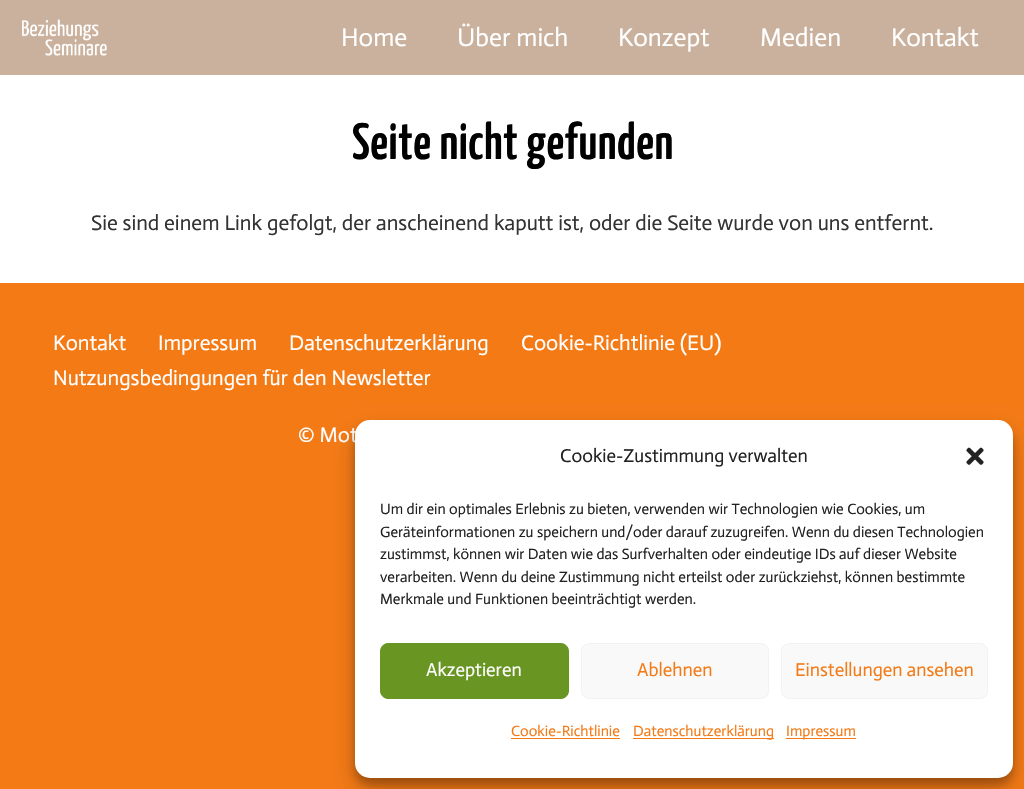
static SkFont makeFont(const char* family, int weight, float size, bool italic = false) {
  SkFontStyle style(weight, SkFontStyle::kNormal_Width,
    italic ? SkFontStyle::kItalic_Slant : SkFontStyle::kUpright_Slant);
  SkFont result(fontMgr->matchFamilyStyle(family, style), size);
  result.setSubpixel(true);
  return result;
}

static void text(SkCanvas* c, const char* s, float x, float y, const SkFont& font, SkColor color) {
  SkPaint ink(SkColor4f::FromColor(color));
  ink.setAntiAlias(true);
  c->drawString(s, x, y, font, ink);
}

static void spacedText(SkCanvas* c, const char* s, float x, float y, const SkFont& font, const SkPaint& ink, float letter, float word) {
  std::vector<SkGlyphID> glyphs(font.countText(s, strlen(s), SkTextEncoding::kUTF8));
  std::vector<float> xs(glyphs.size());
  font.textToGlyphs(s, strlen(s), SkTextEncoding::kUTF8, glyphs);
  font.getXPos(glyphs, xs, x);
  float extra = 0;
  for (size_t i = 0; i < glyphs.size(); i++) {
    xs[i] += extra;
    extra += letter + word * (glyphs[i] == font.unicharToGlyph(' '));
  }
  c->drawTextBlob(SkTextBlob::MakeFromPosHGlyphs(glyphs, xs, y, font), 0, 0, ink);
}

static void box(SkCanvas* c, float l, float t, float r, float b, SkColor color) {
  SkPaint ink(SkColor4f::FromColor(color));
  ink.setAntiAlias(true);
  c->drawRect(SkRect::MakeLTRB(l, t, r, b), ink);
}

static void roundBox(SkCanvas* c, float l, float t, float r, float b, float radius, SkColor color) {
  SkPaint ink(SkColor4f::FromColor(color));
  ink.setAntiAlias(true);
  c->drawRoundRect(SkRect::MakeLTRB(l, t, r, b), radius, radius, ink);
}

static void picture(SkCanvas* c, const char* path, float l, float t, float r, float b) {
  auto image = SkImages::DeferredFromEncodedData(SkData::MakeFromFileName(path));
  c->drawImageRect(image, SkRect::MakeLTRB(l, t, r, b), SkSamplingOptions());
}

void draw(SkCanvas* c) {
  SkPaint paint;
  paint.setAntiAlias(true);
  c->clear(0xfff47a16);
  box(c, 0, 75, 1024, 283, 0xffffffff);
  box(c, 0, 0, 1024, 75, 0xffcab19d);
  picture(c, "img_01.png", 22, 19, 107, 56);
  SkFont face1 = makeFont("Actor", 400, 25.5f);
  text(c, "Home", 341, 46, face1, 0xffffffff);
  text(c, "Über mich", 457, 46, face1, 0xffffffff);
  text(c, "Konzept", 618, 46, face1, 0xffffffff);
  text(c, "Medien", 760, 46, face1, 0xffffffff);
  text(c, "Kontakt", 891, 46, face1, 0xffffffff);
  SkFont face2 = makeFont("Yanone Kaffeesatz", 200, 51);
  paint.setColor(0xff000000);
  spacedText(c, "Seite nicht gefunden", 352, 159, face2, paint, 0.5f, 0);
  SkFont face3 = makeFont("Actor", 400, 21.25f);
  text(c, "Sie sind einem Link gefolgt, der anscheinend kaputt ist, oder die Seite wurde von uns entfernt.", 91, 230, face3, 0xff333333);
  text(c, "Kontakt", 53, 350, face3, 0xffffffff);
  text(c, "Impressum", 158, 350, face3, 0xffffffff);
  text(c, "Datenschutzerklärung", 289, 350, face3, 0xffffffff);
  text(c, "Cookie-Richtlinie (EU)", 521, 350, face3, 0xffffffff);
  text(c, "Nutzungsbedingungen für den Newsletter", 53, 385, face3, 0xffffffff);
  text(c, "© Mot", 298, 442, face3, 0xffffffff);
  paint.setColor(0x3b000000);
  paint.setMaskFilter(SkMaskFilter::MakeBlur(kNormal_SkBlurStyle, 4));
  c->drawRoundRect(SkRect::MakeLTRB(355, 428, 1013, 785), 15, 15, paint);
  paint.setMaskFilter(nullptr);
  paint.setColor(0x30000000);
  paint.setMaskFilter(SkMaskFilter::MakeBlur(kNormal_SkBlurStyle, 12.5f));
  c->drawRoundRect(SkRect::MakeLTRB(355, 433, 1013, 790), 15, 15, paint);
  paint.setMaskFilter(nullptr);
  roundBox(c, 355, 420, 1013, 778, 15, 0xffffffff);
  SkFont face4 = makeFont("Actor", 400, 18.75f);
  text(c, "Cookie-Zustimmung verwalten", 560, 462, face4, 0xff222222);
  picture(c, "img_02.png", 966, 447, 984, 465);
  SkFont face5 = makeFont("Actor", 400, 15);
  text(c, "Um dir ein optimales Erlebnis zu bieten, verwenden wir Technologien wie Cookies, um", 380, 514, face5, 0xff222222);
  text(c, "Geräteinformationen zu speichern und/oder darauf zuzugreifen. Wenn du diesen Technologien", 380, 537, face5, 0xff222222);
  text(c, "zustimmst, können wir Daten wie das Surfverhalten oder eindeutige IDs auf dieser Website", 380, 559, face5, 0xff222222);
  text(c, "verarbeiten. Wenn du deine Zustimmung nicht erteilst oder zurückziehst, können bestimmte", 380, 582, face5, 0xff222222);
  text(c, "Merkmale und Funktionen beeinträchtigt werden.", 380, 604, face5, 0xff222222);
  paint.setColor(0xff699523);
  c->drawRoundRect(SkRect::MakeLTRB(380.5f, 643.5f, 568.5f, 698.5f), 7.5f, 7.5f, paint);
  paint.setStyle(SkPaint::kStroke_Style);
  paint.setStrokeWidth(1);
  c->drawRoundRect(SkRect::MakeLTRB(380.5f, 643.5f, 568.5f, 698.5f), 7.5f, 7.5f, paint);
  text(c, "Akzeptieren", 426, 676, face4, 0xffffffff);
  paint.setStyle(SkPaint::kFill_Style);
  paint.setColor(0xfff9f9f9);
  c->drawRoundRect(SkRect::MakeLTRB(581.5f, 643.5f, 768.5f, 698.5f), 7.5f, 7.5f, paint);
  paint.setStyle(SkPaint::kStroke_Style);
  paint.setColor(0xfff2f2f2);
  c->drawRoundRect(SkRect::MakeLTRB(581.5f, 643.5f, 768.5f, 698.5f), 7.5f, 7.5f, paint);
  text(c, "Ablehnen", 637, 676, face4, 0xfff47a16);
  paint.setStyle(SkPaint::kFill_Style);
  paint.setColor(0xfff9f9f9);
  c->drawRoundRect(SkRect::MakeLTRB(781.5f, 643.5f, 987.5f, 698.5f), 7.5f, 7.5f, paint);
  paint.setStyle(SkPaint::kStroke_Style);
  paint.setColor(0xfff2f2f2);
  c->drawRoundRect(SkRect::MakeLTRB(781.5f, 643.5f, 987.5f, 698.5f), 7.5f, 7.5f, paint);
  text(c, "Einstellungen ansehen", 795, 676, face4, 0xfff47a16);
  text(c, "Cookie-Richtlinie", 511, 736, face5, 0xfff47a16);
  box(c, 511, 738, 620, 739, 0xfff47a16);
  box(c, 633, 738, 774, 739, 0xfff47a16);
  text(c, "Datenschutzerklärung", 633, 736, face5, 0xfff47a16);
  box(c, 786, 738, 856, 739, 0xfff47a16);
  text(c, "Impressum", 786, 736, face5, 0xfff47a16);
}
